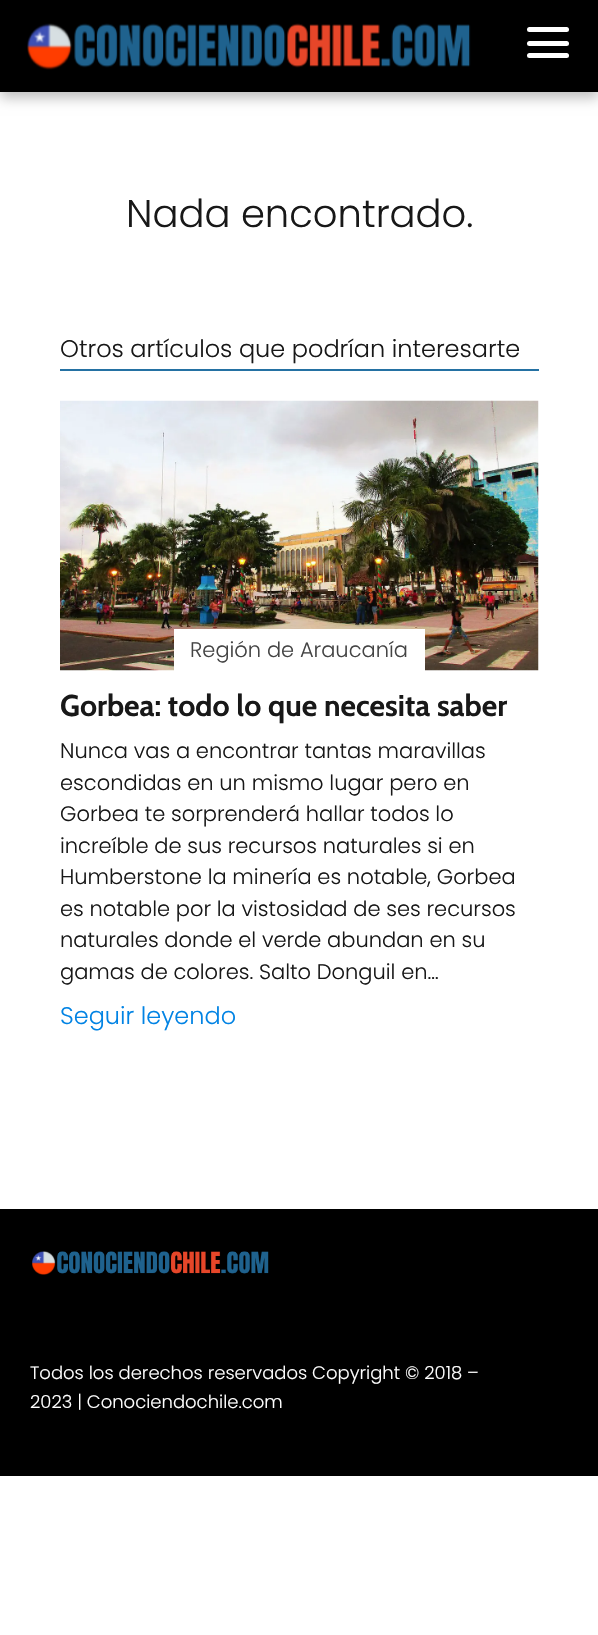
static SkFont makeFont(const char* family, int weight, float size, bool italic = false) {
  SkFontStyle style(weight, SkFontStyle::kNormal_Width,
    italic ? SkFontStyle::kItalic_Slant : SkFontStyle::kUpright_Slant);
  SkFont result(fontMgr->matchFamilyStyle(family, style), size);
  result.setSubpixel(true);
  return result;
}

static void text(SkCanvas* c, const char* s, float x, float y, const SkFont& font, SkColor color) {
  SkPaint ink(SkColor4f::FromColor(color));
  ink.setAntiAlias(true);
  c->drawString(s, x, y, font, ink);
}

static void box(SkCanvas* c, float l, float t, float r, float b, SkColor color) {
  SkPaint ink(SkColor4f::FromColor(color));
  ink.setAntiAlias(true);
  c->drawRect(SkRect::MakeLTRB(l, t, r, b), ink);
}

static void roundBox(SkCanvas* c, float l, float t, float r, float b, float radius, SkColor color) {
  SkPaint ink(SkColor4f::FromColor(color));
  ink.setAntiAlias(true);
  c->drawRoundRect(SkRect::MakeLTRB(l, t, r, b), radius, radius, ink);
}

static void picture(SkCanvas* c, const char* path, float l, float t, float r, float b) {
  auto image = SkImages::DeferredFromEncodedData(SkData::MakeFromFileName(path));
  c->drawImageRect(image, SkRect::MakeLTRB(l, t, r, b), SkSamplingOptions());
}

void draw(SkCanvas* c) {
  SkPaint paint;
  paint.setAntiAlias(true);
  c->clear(0xffffffff);
  paint.setColor(0x40000000);
  paint.setMaskFilter(SkMaskFilter::MakeBlur(kNormal_SkBlurStyle, 6));
  c->drawRect(SkRect::MakeLTRB(0, 6, 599, 98), paint);
  paint.setMaskFilter(nullptr);
  box(c, 0, 0, 598, 92, 0xff000000);
  picture(c, "img_01.png", 27, 23, 471, 70);
  roundBox(c, 527, 27, 569, 32, 2.5f, 0xffffffff);
  roundBox(c, 527, 41, 569, 46, 2.5f, 0xffffffff);
  roundBox(c, 527, 53, 569, 58, 2.5f, 0xffffffff);
  SkFont face1 = makeFont("Poppins", 300, 38.5f);
  text(c, "Nada encontrado.", 126, 227, face1, 0xff181818);
  box(c, 60, 369, 539, 371, 0xff2471a3);
  SkFont face2 = makeFont("Poppins", 300, 24);
  text(c, "Otros artículos que podrían interesarte", 60, 357, face2, 0xff181818);
  picture(c, "img_02.png", 60, 400, 539, 671);
  box(c, 174, 629, 425, 671, 0xffffffff);
  SkFont face3 = makeFont("Poppins", 300, 21);
  text(c, "Región de Araucanía", 190, 657, face3, 0xff444444);
  SkFont face4 = makeFont("Cabin", 700, 30);
  text(c, "Gorbea: todo lo que necesita saber", 60, 716, face4, 0xff181818);
  text(c, "Nunca vas a encontrar tantas maravillas", 60, 758, face3, 0xff181818);
  text(c, "escondidas en un mismo lugar pero en", 60, 790, face3, 0xff181818);
  text(c, "Gorbea te sorprenderá hallar todos lo", 60, 821, face3, 0xff181818);
  text(c, "increíble de sus recursos naturales si en", 60, 853, face3, 0xff181818);
  text(c, "Humberstone la minería es notable, Gorbea", 60, 884, face3, 0xff181818);
  text(c, "es notable por la vistosidad de ses recursos", 60, 916, face3, 0xff181818);
  text(c, "naturales donde el verde abundan en su", 60, 947, face3, 0xff181818);
  text(c, "gamas de colores. Salto Donguil en…", 60, 979, face3, 0xff181818);
  text(c, "Seguir leyendo", 60, 1024, face2, 0xff0183e4);
  box(c, 0, 1209, 598, 1476, 0xff000000);
  picture(c, "img_03.png", 32, 1251, 269, 1275);
  SkFont face5 = makeFont("Poppins", 300, 18);
  text(c, "Todos los derechos reservados Copyright © 2018 –", 30, 1379, face5, 0xffffffff);
  text(c, "2023 | Conociendochile.com", 30, 1408, face5, 0xffffffff);
}
